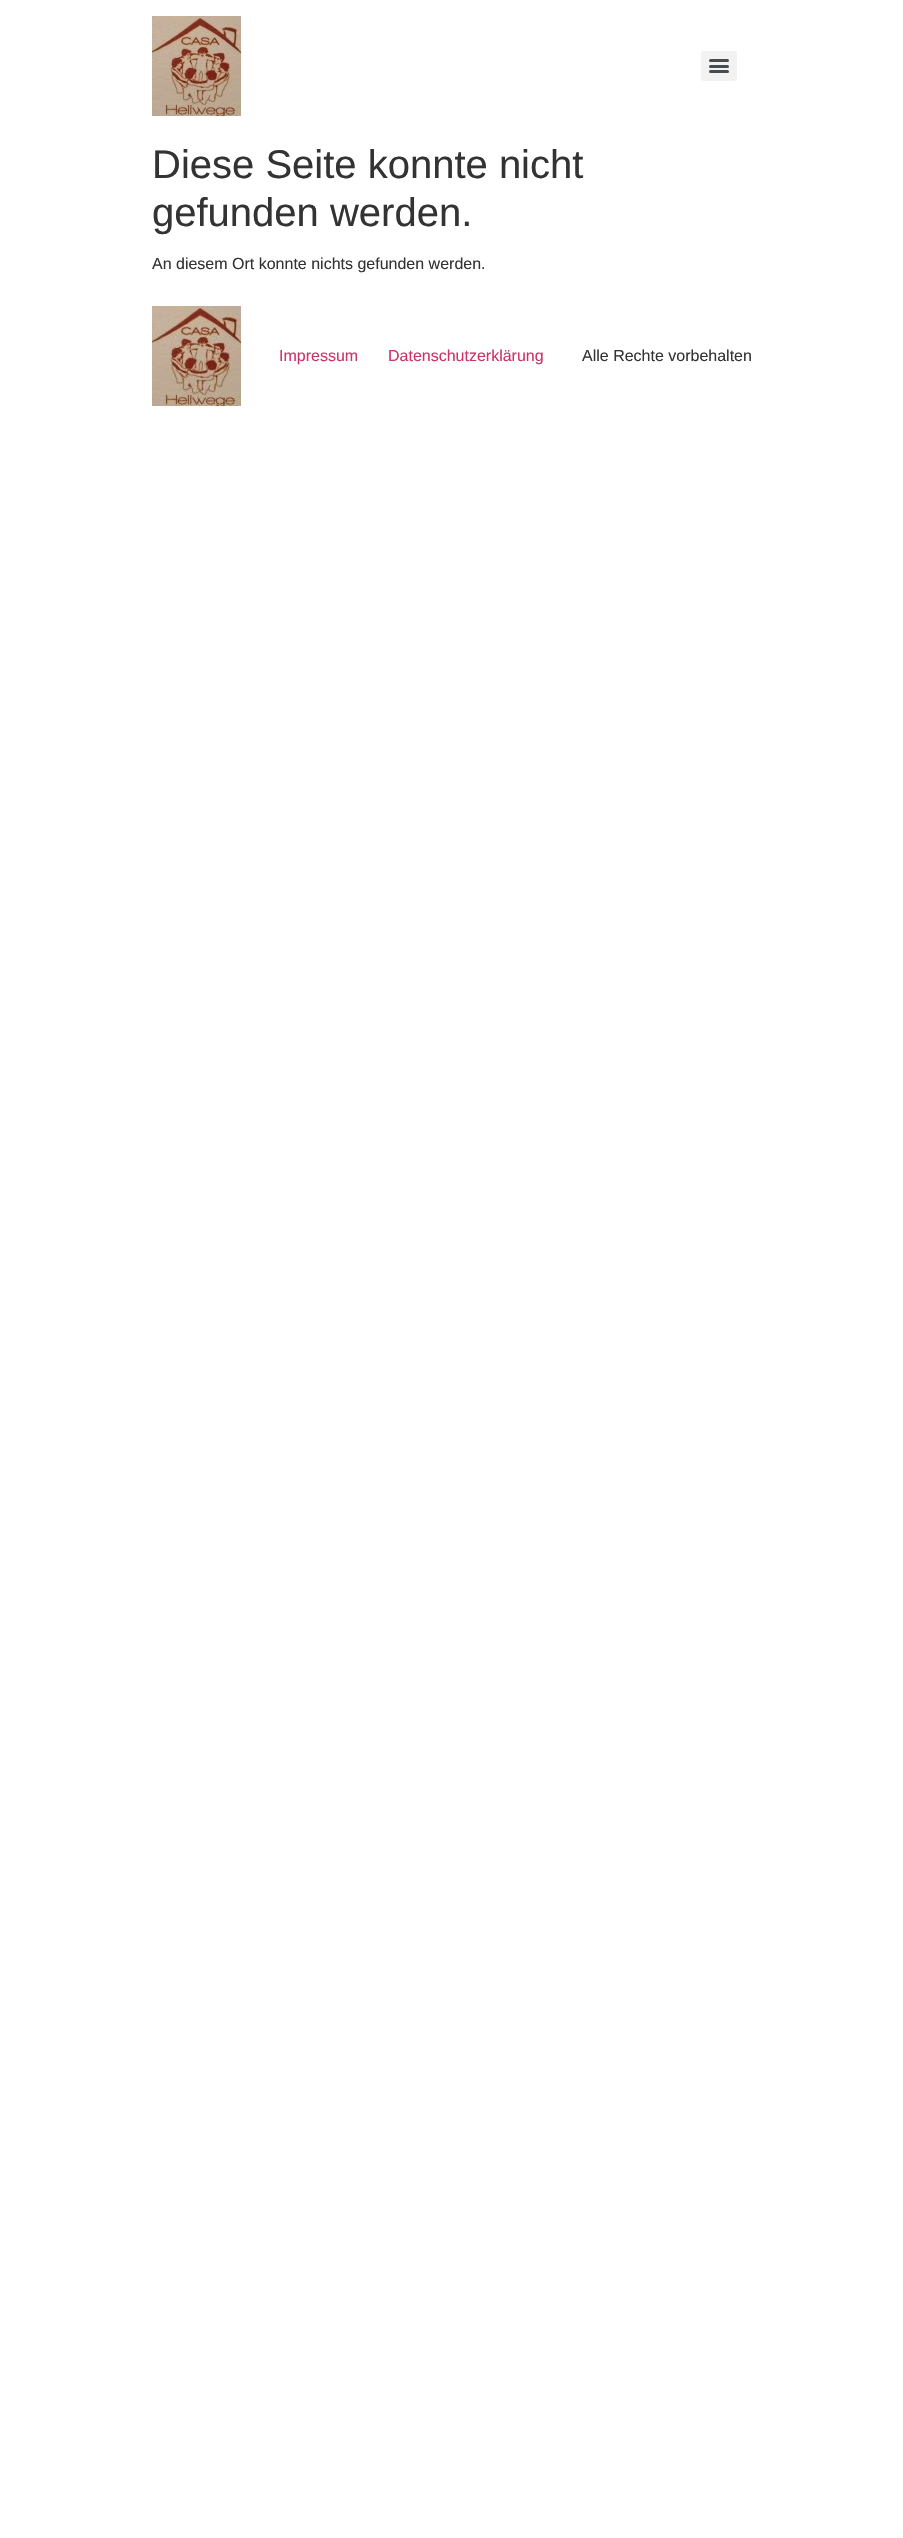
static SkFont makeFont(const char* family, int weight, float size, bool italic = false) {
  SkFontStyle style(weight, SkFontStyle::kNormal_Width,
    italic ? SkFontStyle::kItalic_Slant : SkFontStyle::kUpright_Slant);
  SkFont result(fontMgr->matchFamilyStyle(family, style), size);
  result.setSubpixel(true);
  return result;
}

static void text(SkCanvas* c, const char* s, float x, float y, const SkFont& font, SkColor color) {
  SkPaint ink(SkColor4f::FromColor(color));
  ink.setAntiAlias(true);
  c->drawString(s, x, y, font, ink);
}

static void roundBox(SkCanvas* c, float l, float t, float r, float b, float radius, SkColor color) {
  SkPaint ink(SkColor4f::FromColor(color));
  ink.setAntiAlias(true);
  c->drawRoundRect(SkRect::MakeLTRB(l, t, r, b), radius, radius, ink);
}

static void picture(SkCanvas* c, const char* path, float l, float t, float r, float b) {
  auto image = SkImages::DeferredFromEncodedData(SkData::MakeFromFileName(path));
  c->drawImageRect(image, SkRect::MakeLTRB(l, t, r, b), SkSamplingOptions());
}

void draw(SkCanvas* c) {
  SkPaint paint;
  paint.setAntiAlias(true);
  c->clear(0xffffffff);
  picture(c, "img_01.png", 152, 16, 241, 116);
  roundBox(c, 701, 51, 737, 81, 3, 0xfff2f2f2);
  roundBox(c, 709, 65, 729, 68, 1.5f, 0xff494c4f);
  roundBox(c, 709, 59, 729, 62, 1.5f, 0xff494c4f);
  roundBox(c, 709, 70, 729, 73, 1.5f, 0xff494c4f);
  SkFont face1 = makeFont("Liberation Sans", 400, 40);
  text(c, "Diese Seite konnte nicht", 152, 178, face1, 0xff333333);
  text(c, "gefunden werden.", 152, 226, face1, 0xff333333);
  SkFont face2 = makeFont("Liberation Sans", 400, 16);
  text(c, "An diesem Ort konnte nichts gefunden werden.", 152, 269, face2, 0xff333333);
  picture(c, "img_01.png", 152, 306, 241, 406);
  text(c, "Impressum", 279, 361, face2, 0xffcc3366);
  text(c, "Datenschutzerklärung", 388, 361, face2, 0xffcc3366);
  text(c, "Alle Rechte vorbehalten", 582, 361, face2, 0xff333333);
}
